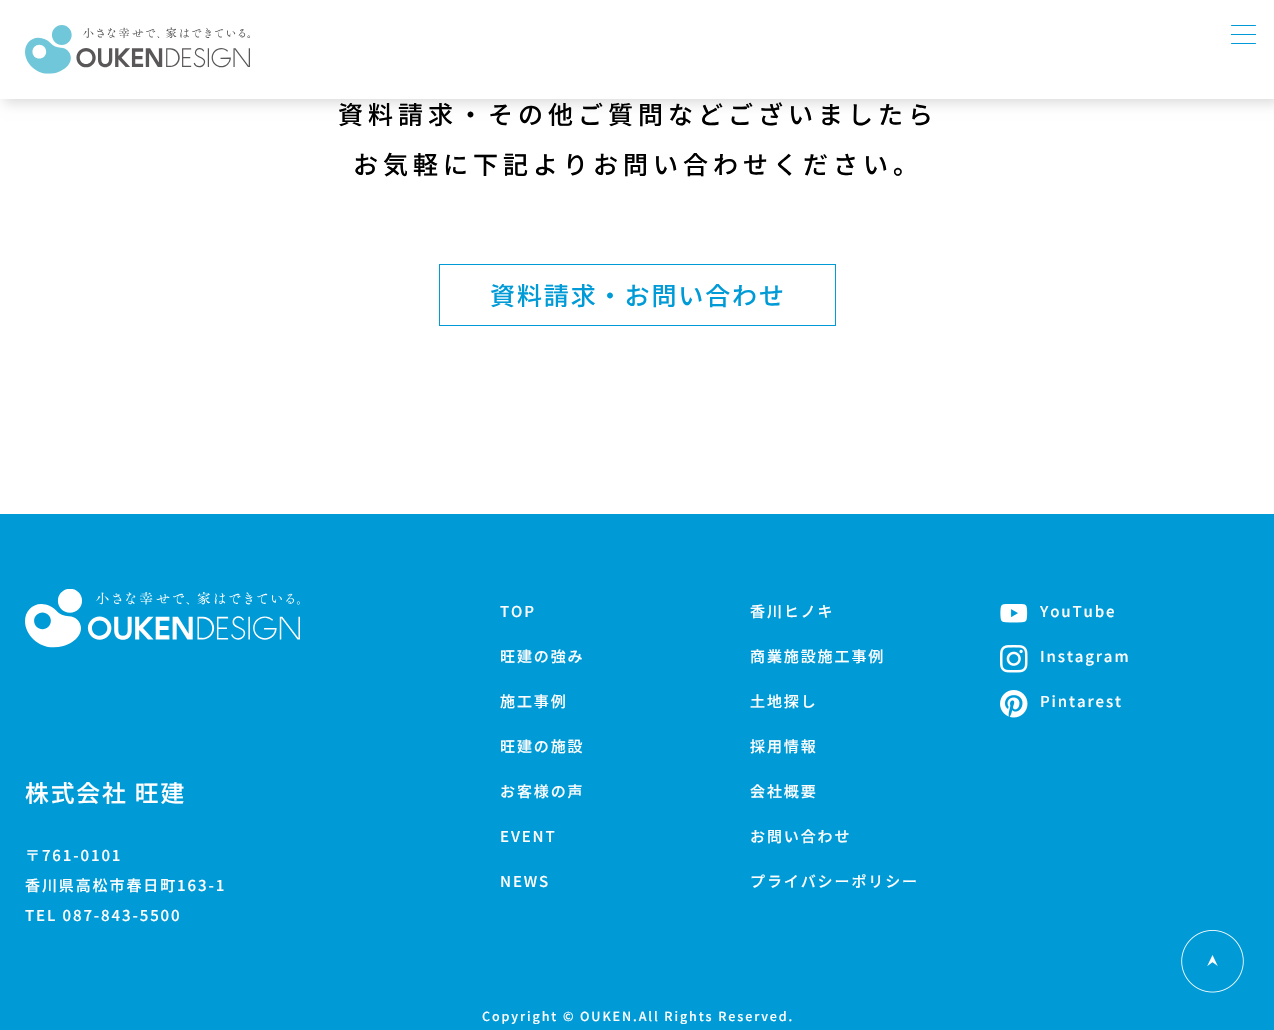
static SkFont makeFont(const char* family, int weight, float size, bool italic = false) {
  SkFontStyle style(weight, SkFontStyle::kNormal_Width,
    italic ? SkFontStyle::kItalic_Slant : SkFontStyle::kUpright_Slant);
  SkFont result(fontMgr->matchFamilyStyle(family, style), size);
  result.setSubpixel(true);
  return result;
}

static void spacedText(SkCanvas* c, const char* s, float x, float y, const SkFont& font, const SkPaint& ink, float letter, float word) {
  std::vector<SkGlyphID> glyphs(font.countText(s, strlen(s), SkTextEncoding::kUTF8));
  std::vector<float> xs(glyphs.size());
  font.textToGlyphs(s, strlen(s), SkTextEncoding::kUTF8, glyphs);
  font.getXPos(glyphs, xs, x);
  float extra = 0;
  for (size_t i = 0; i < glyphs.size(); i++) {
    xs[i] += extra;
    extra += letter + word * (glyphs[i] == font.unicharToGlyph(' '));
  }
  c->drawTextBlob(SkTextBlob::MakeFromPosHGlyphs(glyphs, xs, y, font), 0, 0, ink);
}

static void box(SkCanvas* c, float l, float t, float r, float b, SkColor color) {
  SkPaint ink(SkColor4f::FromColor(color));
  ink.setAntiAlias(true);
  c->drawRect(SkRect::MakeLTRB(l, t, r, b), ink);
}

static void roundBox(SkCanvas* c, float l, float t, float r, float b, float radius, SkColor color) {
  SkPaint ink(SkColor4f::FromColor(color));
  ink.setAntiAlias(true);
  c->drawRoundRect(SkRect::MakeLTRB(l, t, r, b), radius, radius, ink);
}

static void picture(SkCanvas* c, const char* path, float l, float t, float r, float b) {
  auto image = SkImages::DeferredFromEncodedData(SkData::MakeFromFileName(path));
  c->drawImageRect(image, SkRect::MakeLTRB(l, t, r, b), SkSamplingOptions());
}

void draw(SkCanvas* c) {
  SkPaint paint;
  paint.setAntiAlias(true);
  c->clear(0xffffffff);
  paint.setColor(0x24000000);
  paint.setMaskFilter(SkMaskFilter::MakeBlur(kNormal_SkBlurStyle, 6));
  c->drawRect(SkRect::MakeLTRB(4, 4, 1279, 103), paint);
  paint.setMaskFilter(nullptr);
  box(c, 0, 0, 1274, 99, 0xffffffff);
  picture(c, "img_01.png", 25, 25, 250, 74);
  box(c, 1231, 34, 1256, 35, 0xff009bd7);
  roundBox(c, 1231, 25, 1256, 26, 0.5f, 0xff009bd7);
  roundBox(c, 1231, 43, 1256, 44, 0.5f, 0xff009bd7);
  SkFont face1 = makeFont("Noto Sans JP", 500, 25);
  paint.setColor(0xff000000);
  spacedText(c, "資料請求・その他ご質問などございましたら", 338, 124, face1, paint, 5, 0);
  spacedText(c, "お気軽に下記よりお問い合わせください。", 353, 174, face1, paint, 5, 0);
  paint.setStyle(SkPaint::kStroke_Style);
  paint.setStrokeWidth(1);
  paint.setColor(0xff009bd7);
  c->drawRect(SkRect::MakeLTRB(439.5f, 264.5f, 835.5f, 325.5f), paint);
  paint.setStyle(SkPaint::kFill_Style);
  spacedText(c, "資料請求・お問い合わせ", 490, 305, face1, paint, 1.9f, 0);
  box(c, 0, 514, 1274, 1030, 0xff009bd7);
  picture(c, "img_02.png", 25, 589, 300, 648);
  SkFont face2 = makeFont("Noto Sans JP", 500, 23.75f);
  paint.setColor(0xffffffff);
  spacedText(c, "株式会社 旺建", 25, 802, face2, paint, 1.9f, 0);
  SkFont face3 = makeFont("Noto Sans JP", 500, 15);
  spacedText(c, "〒761-0101", 25, 861, face3, paint, 1.9f, 0);
  spacedText(c, "香川県高松市春日町163-1", 25, 891, face3, paint, 1.9f, 0);
  spacedText(c, "TEL 087-843-5500", 25, 921, face3, paint, 1.9f, 0);
  spacedText(c, "TOP", 500, 617, face3, paint, 1.9f, 0);
  spacedText(c, "旺建の強み", 500, 662, face3, paint, 1.9f, 0);
  spacedText(c, "施工事例", 500, 707, face3, paint, 1.9f, 0);
  spacedText(c, "旺建の施設", 500, 752, face3, paint, 1.9f, 0);
  spacedText(c, "お客様の声", 500, 797, face3, paint, 1.9f, 0);
  spacedText(c, "EVENT", 500, 842, face3, paint, 1.9f, 0);
  spacedText(c, "NEWS", 500, 887, face3, paint, 1.9f, 0);
  spacedText(c, "香川ヒノキ", 750, 617, face3, paint, 1.9f, 0);
  spacedText(c, "商業施設施工事例", 750, 662, face3, paint, 1.9f, 0);
  spacedText(c, "土地探し", 750, 707, face3, paint, 1.9f, 0);
  spacedText(c, "採用情報", 750, 752, face3, paint, 1.9f, 0);
  spacedText(c, "会社概要", 750, 797, face3, paint, 1.9f, 0);
  spacedText(c, "お問い合わせ", 750, 842, face3, paint, 1.9f, 0);
  spacedText(c, "プライバシーポリシー", 750, 887, face3, paint, 1.9f, 0);
  picture(c, "img_03.png", 1000, 604, 1028, 623);
  spacedText(c, "YouTube", 1040, 617, face3, paint, 1.9f, 0);
  picture(c, "img_04.png", 1000, 645, 1028, 673);
  spacedText(c, "Instagram", 1040, 662, face3, paint, 1.9f, 0);
  picture(c, "img_05.png", 1000, 690, 1028, 718);
  spacedText(c, "Pintarest", 1040, 707, face3, paint, 1.9f, 0);
  SkFont face4 = makeFont("Noto Sans JP", 500, 12.5f);
  spacedText(c, "Copyright © OUKEN.All Rights Reserved.", 482, 1021, face4, paint, 1.9f, 0);
  picture(c, "img_06.png", 1181, 930, 1244, 993);
}
